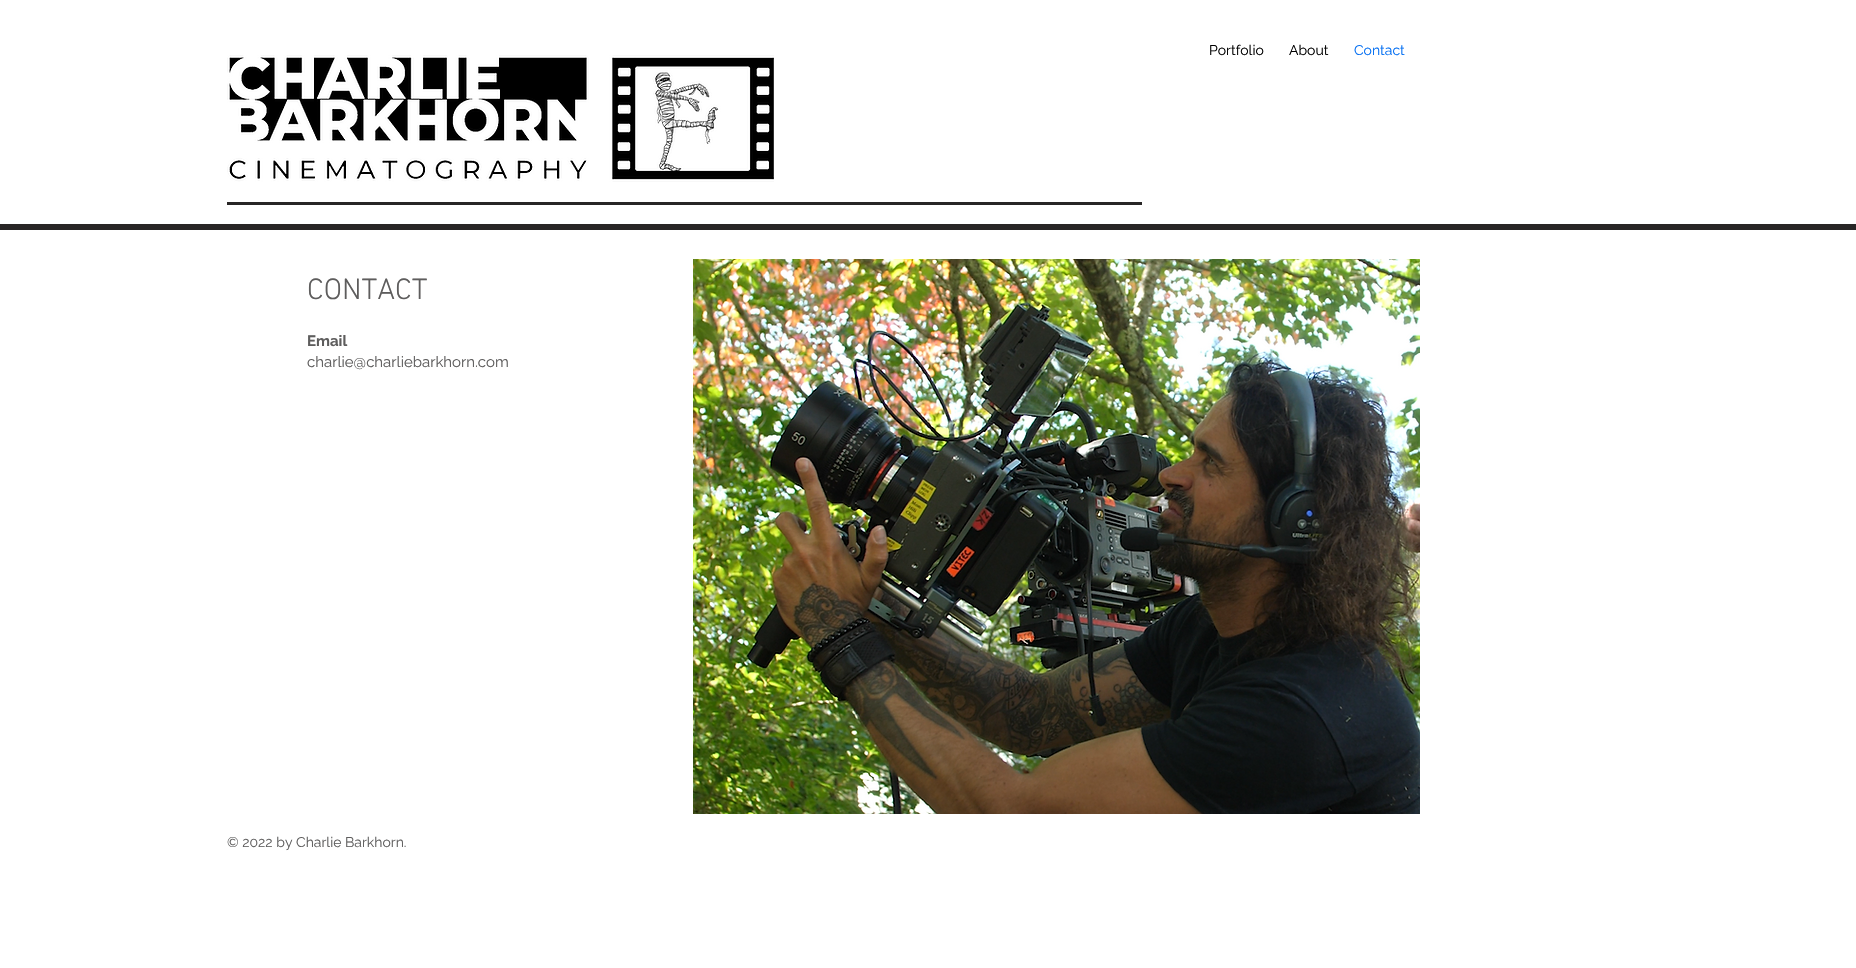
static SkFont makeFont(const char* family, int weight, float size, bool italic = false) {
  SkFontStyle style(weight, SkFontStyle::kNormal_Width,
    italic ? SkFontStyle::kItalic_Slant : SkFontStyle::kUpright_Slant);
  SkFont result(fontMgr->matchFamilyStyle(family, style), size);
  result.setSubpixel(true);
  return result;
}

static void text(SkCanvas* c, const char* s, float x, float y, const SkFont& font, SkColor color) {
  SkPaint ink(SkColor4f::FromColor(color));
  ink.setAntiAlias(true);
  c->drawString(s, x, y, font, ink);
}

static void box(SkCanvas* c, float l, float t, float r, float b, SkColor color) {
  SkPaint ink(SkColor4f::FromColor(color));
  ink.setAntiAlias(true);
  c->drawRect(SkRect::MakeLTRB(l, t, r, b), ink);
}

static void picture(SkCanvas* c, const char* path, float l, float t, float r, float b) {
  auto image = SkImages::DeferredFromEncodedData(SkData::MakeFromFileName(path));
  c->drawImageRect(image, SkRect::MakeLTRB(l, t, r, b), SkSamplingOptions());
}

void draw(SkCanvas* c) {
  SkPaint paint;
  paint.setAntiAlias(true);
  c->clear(0xffffffff);
  SkFont face1 = makeFont("Raleway", 400, 14);
  text(c, "Portfolio", 1209, 55, face1, 0xff000000);
  text(c, "About", 1289, 55, face1, 0xff000000);
  text(c, "Contact", 1354, 55, face1, 0xff026ef2);
  picture(c, "img_01.png", 227, 55, 774, 182);
  box(c, 227, 202, 1142, 205, 0xff282626);
  box(c, 0, 224, 1856, 230, 0xff282626);
  SkFont face2 = makeFont("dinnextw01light", 300, 30);
  text(c, "CONTACT", 307, 299, face2, 0xff5e5d5d);
  SkFont face3 = makeFont("Raleway", 700, 15);
  text(c, "Email", 307, 346, face3, 0xff5e5d5d);
  SkFont face4 = makeFont("Raleway", 400, 15);
  text(c, "charlie@charliebarkhorn.com", 307, 367, face4, 0xff5e5d5d);
  picture(c, "img_02.png", 693, 259, 1420, 814);
  text(c, "© 2022 by Charlie Barkhorn.", 227, 847, face1, 0xff5e5d5d);
}
